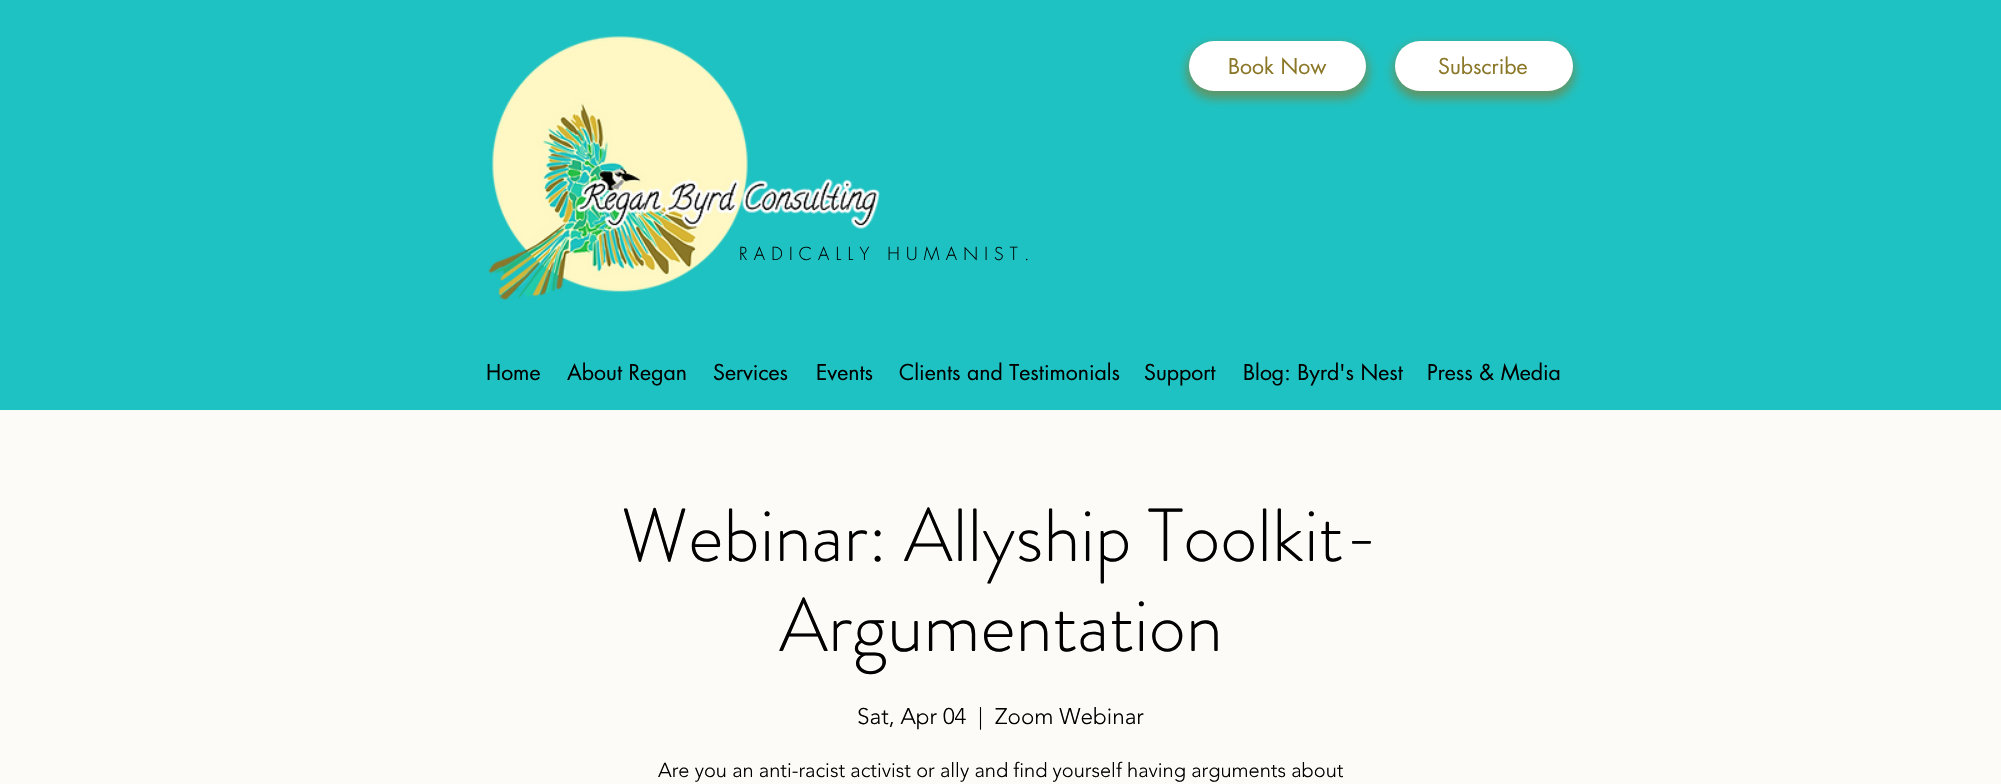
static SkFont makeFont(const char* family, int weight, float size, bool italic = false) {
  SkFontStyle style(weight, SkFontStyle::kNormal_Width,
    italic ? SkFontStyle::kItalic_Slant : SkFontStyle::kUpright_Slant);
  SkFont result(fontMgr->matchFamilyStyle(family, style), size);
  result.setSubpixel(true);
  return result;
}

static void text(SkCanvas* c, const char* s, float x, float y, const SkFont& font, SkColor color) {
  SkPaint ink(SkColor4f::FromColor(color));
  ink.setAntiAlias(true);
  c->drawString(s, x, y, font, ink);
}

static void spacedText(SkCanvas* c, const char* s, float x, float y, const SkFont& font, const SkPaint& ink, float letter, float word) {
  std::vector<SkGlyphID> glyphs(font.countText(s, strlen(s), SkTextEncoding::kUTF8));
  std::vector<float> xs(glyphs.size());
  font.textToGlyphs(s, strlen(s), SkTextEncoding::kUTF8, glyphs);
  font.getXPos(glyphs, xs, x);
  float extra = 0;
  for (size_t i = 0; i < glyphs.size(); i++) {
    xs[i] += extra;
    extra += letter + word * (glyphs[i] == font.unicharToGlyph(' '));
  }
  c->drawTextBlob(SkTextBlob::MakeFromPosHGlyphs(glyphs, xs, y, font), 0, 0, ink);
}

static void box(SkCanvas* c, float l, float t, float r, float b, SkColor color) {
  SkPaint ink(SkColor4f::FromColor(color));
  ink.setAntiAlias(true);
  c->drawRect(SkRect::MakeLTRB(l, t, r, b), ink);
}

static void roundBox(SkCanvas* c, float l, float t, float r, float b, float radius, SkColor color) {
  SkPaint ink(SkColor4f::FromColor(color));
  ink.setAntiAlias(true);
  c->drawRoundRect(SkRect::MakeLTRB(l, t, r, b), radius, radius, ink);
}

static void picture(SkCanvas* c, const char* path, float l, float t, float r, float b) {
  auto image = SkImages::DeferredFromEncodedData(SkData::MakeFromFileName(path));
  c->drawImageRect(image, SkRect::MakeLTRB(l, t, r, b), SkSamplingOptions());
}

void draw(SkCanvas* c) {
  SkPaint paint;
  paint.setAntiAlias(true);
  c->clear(0xfffdfbf7);
  box(c, 0, 0, 2001, 410, 0xff1ec2c2);
  paint.setColor(0x948b7728);
  paint.setMaskFilter(SkMaskFilter::MakeBlur(kNormal_SkBlurStyle, 5));
  c->drawRoundRect(SkRect::MakeLTRB(1186, 44, 1369, 99), 27.5f, 27.5f, paint);
  paint.setMaskFilter(nullptr);
  roundBox(c, 1189, 41, 1366, 91, 25, 0xffffffff);
  SkFont face1 = makeFont("futura", 400, 21.25f);
  text(c, "Book Now", 1228, 74, face1, 0xff8b7728);
  paint.setMaskFilter(SkMaskFilter::MakeBlur(kNormal_SkBlurStyle, 5));
  c->drawRoundRect(SkRect::MakeLTRB(1393, 44, 1575, 99), 27.5f, 27.5f, paint);
  paint.setMaskFilter(nullptr);
  roundBox(c, 1395, 41, 1573, 91, 25, 0xffffffff);
  text(c, "Subscribe", 1438, 74, face1, 0xff8b7728);
  picture(c, "img_01.png", 488, 36, 881, 301);
  SkFont face2 = makeFont("futura", 300, 17.5f);
  paint.setColor(0xff000000);
  spacedText(c, "RADICALLY HUMANIST.", 739, 260, face2, paint, 6.25f, 0);
  text(c, "Home", 486, 380, face1, 0xff000000);
  text(c, "About Regan", 567, 380, face1, 0xff000000);
  text(c, "Services", 713, 380, face1, 0xff000000);
  text(c, "Events", 816, 380, face1, 0xff000000);
  text(c, "Clients and Testimonials", 899, 380, face1, 0xff000000);
  text(c, "Support", 1144, 380, face1, 0xff000000);
  text(c, "Blog: Byrd's Nest", 1243, 380, face1, 0xff000000);
  text(c, "Press & Media", 1427, 380, face1, 0xff000000);
  SkFont face3 = makeFont("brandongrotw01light", 300, 75);
  text(c, "Webinar: Allyship Toolkit-", 621, 561, face3, 0xff000000);
  text(c, "Argumentation", 779, 651, face3, 0xff000000);
  SkFont face4 = makeFont("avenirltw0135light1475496", 300, 22.5f);
  text(c, "Sat, Apr 04", 857, 724, face4, 0xff000000);
  text(c, "|", 978, 724, face4, 0xff000000);
  text(c, "Zoom Webinar", 995, 724, face4, 0xff000000);
  SkFont face5 = makeFont("avenirltw0135light1475496", 300, 20);
  text(c, "Are you an anti-racist activist or ally and find yourself having arguments about", 658, 777, face5, 0xff000000);
}
